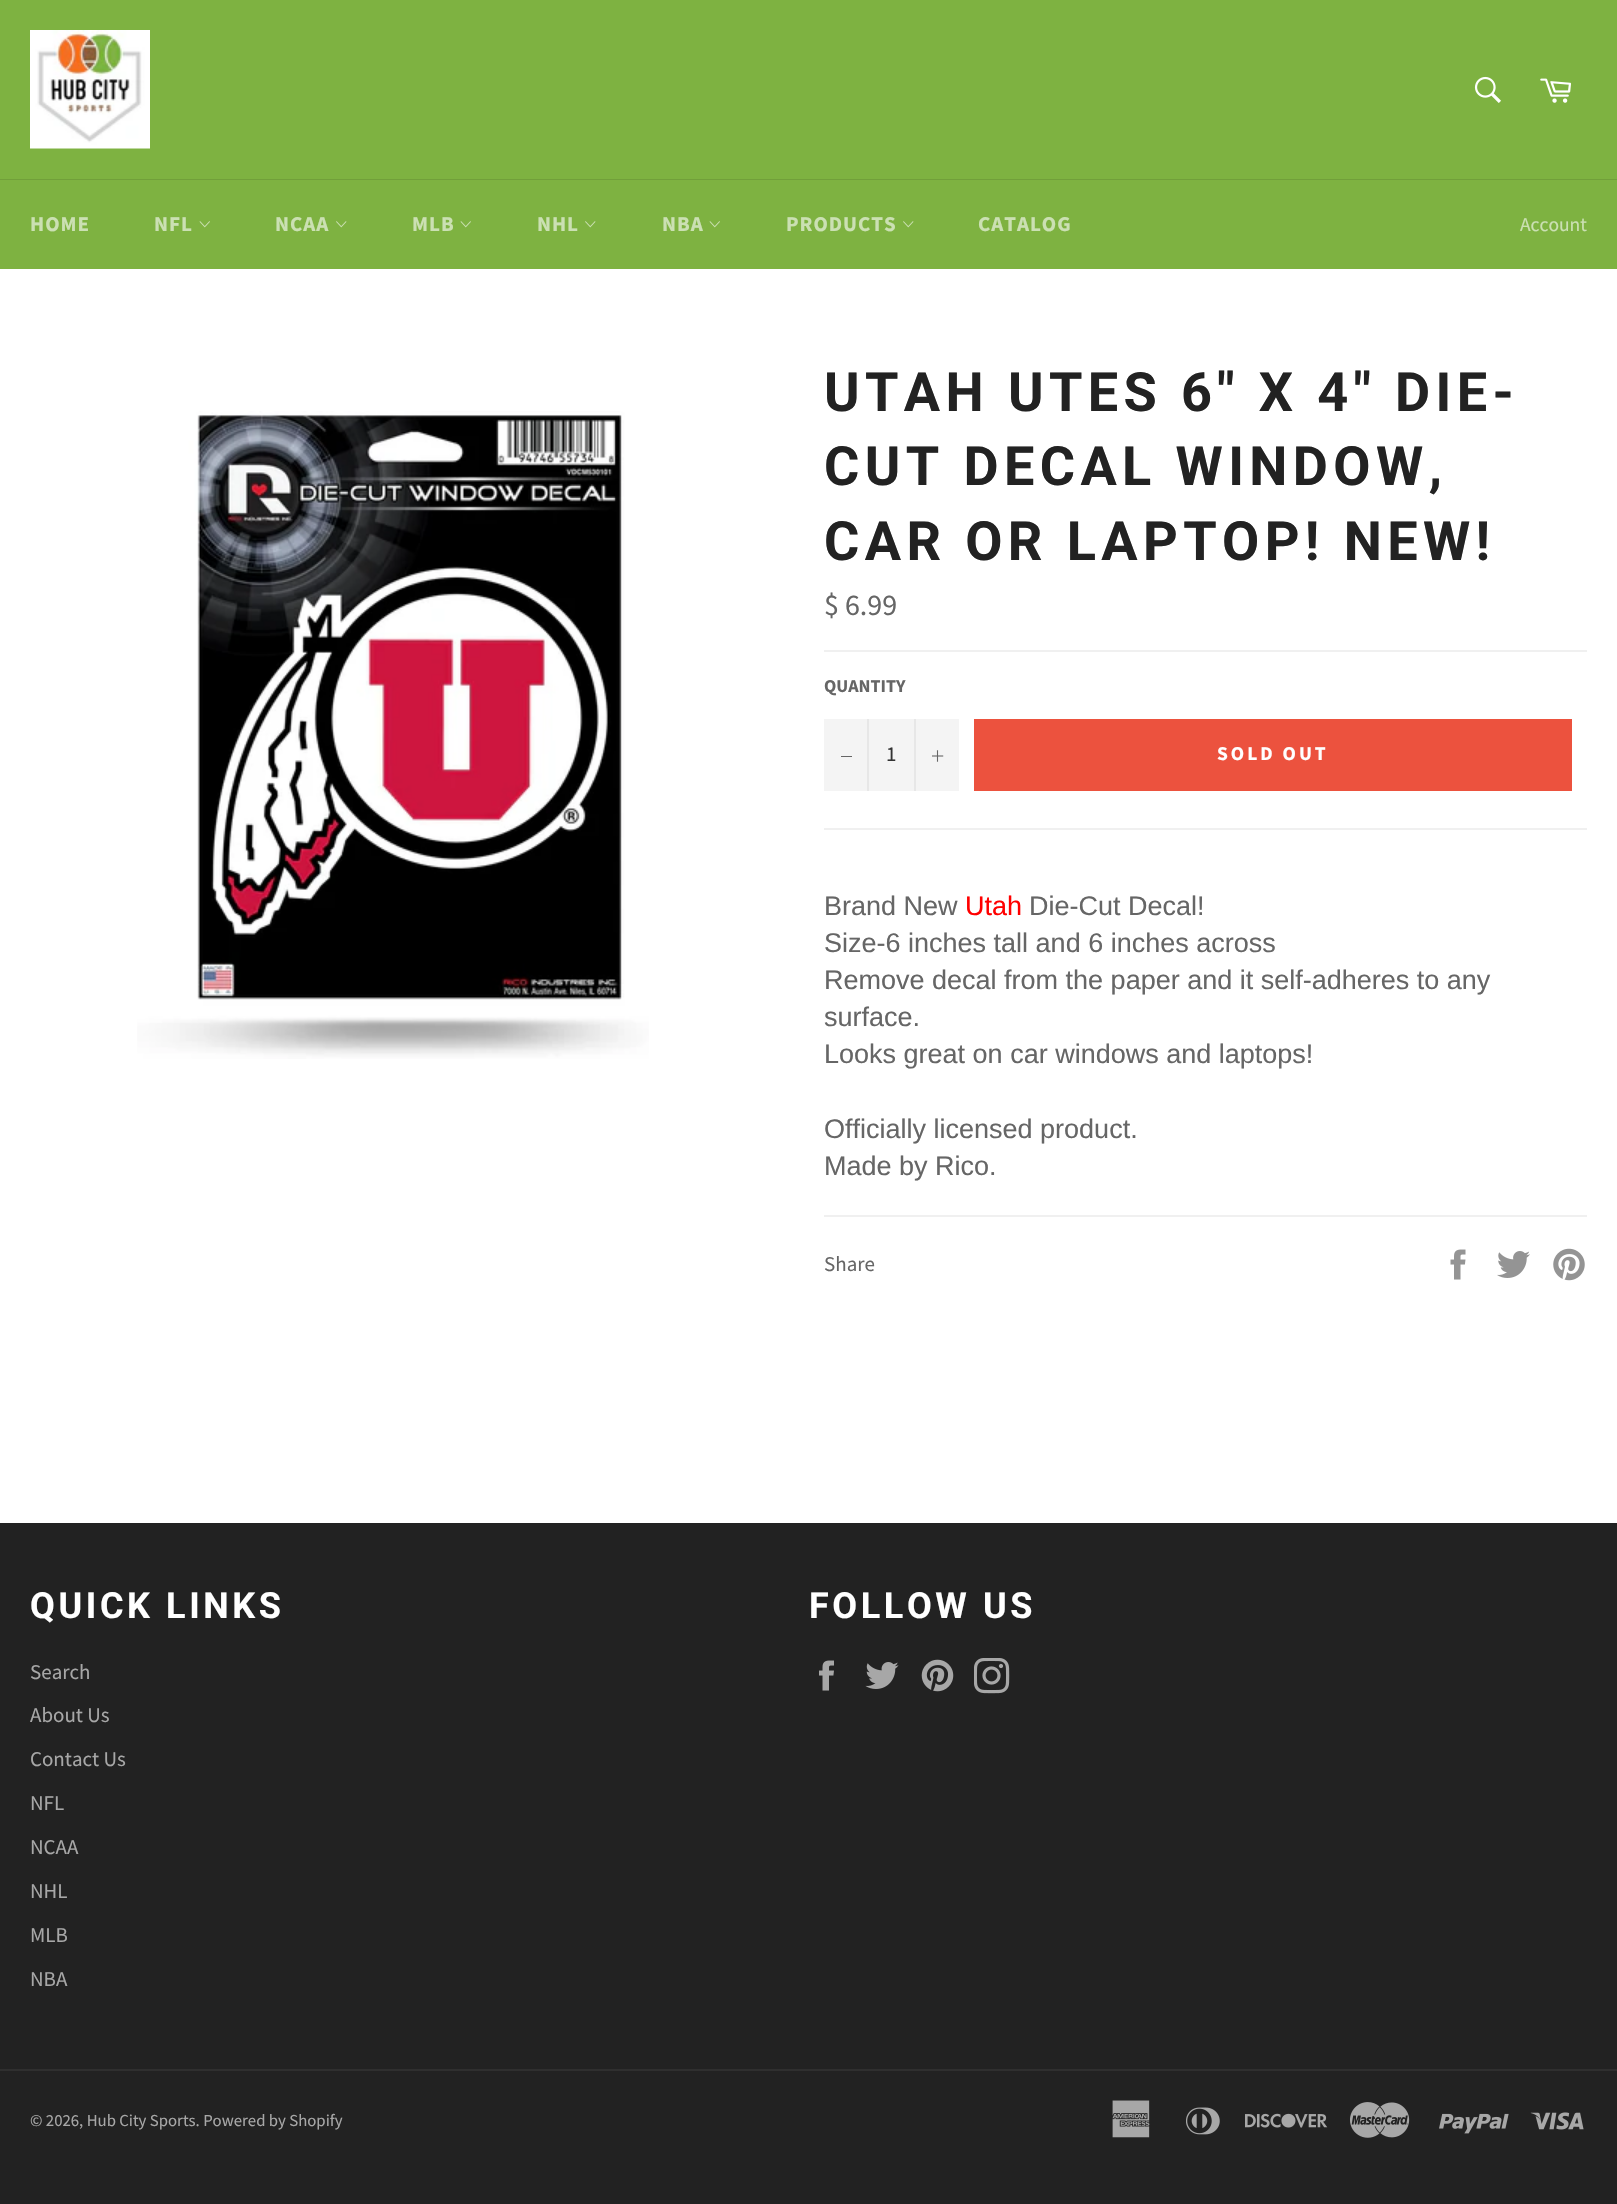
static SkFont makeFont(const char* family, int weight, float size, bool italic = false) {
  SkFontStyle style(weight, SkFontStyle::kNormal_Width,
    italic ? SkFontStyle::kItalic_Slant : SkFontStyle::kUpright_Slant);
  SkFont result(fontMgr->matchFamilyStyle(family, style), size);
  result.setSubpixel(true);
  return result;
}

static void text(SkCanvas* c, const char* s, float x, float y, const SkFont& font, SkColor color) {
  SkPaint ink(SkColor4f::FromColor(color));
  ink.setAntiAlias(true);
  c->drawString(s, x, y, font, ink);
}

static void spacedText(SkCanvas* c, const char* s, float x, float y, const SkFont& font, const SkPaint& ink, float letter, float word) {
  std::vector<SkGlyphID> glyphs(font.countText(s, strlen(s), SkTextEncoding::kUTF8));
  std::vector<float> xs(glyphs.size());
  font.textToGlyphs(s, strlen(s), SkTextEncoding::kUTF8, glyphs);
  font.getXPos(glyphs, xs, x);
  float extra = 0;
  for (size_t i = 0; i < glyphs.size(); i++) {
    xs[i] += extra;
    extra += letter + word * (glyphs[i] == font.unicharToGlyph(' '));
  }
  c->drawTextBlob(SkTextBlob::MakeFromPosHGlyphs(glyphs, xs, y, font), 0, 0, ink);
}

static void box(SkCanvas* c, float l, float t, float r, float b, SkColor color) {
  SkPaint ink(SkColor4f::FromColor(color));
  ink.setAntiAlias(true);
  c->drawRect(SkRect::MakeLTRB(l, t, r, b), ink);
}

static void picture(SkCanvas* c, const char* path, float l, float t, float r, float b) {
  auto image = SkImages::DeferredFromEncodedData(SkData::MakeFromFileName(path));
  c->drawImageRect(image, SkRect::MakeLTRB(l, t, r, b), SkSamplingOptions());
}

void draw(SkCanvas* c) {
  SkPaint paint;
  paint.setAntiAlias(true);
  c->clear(0xff222222);
  box(c, 0, 0, 1617, 179, 0xff7eb241);
  picture(c, "img_01.png", 30, 30, 150, 149);
  picture(c, "img_02.png", 1474, 76, 1501, 103);
  picture(c, "img_03.png", 1540, 78, 1571, 103);
  box(c, 0, 179, 1617, 180, 0xff719f3a);
  box(c, 0, 180, 1617, 269, 0xff7eb241);
  SkFont face1 = makeFont("Source Sans Pro", 700, 21);
  paint.setColor(0xffcbe0b3);
  spacedText(c, "HOME", 30, 231, face1, paint, 1, 0);
  spacedText(c, "NFL", 154, 231, face1, paint, 1, 0);
  picture(c, "img_04.png", 199, 221, 210, 228);
  spacedText(c, "NCAA", 275, 231, face1, paint, 1, 0);
  picture(c, "img_05.png", 336, 221, 347, 228);
  spacedText(c, "MLB", 412, 231, face1, paint, 1, 0);
  picture(c, "img_04.png", 460, 221, 471, 228);
  spacedText(c, "NHL", 537, 231, face1, paint, 1, 0);
  picture(c, "img_05.png", 585, 221, 596, 228);
  spacedText(c, "NBA", 662, 231, face1, paint, 1, 0);
  picture(c, "img_04.png", 709, 221, 720, 228);
  spacedText(c, "PRODUCTS", 786, 231, face1, paint, 1, 0);
  picture(c, "img_05.png", 903, 221, 914, 228);
  spacedText(c, "CATALOG", 978, 231, face1, paint, 1, 0);
  SkFont face2 = makeFont("Source Sans Pro", 400, 19.5f);
  text(c, "Account", 1520, 231, face2, 0xffcbe0b3);
  box(c, 0, 269, 1617, 1523, 0xffffffff);
  picture(c, "img_06.png", 137, 411, 649, 1059);
  SkFont face3 = makeFont("Roboto", 700, 54);
  paint.setColor(0xff222222);
  spacedText(c, "UTAH UTES 6\" X 4\" DIE-", 824, 411, face3, paint, 5.4f, 0);
  spacedText(c, "CUT DECAL WINDOW,", 824, 485, face3, paint, 5.4f, 0);
  spacedText(c, "CAR OR LAPTOP! NEW!", 824, 560, face3, paint, 5.4f, 0);
  SkFont face4 = makeFont("Source Sans Pro", 400, 30);
  text(c, "$ 6.99", 824, 615, face4, 0xff666666);
  box(c, 824, 650, 1587, 652, 0xfff0f0f0);
  SkFont face5 = makeFont("Source Sans Pro", 700, 18);
  text(c, "QUANTITY", 824, 692, face5, 0xff666666);
  box(c, 824, 719, 959, 791, 0xfff4f4f4);
  box(c, 867, 719, 869, 791, 0xffe7e7e7);
  box(c, 841, 756, 852, 757, 0xff666666);
  SkFont face6 = makeFont("Source Sans Pro", 400, 21);
  text(c, "1", 886, 761, face6, 0xff333333);
  box(c, 914, 719, 916, 791, 0xffe7e7e7);
  picture(c, "img_07.png", 932, 750, 944, 762);
  box(c, 974, 719, 1572, 791, 0xffec523e);
  SkFont face7 = makeFont("Source Sans Pro", 700, 19.5f);
  paint.setColor(0xffffffff);
  spacedText(c, "SOLD OUT", 1217, 760, face7, paint, 3, 0);
  box(c, 824, 828, 1587, 830, 0xfff0f0f0);
  SkFont face8 = makeFont("Liberation Sans", 400, 27);
  text(c, "Brand New", 824, 915, face8, 0xff666666);
  text(c, "Utah", 965, 915, face8, 0xffff0000);
  text(c, "Die-Cut Decal!", 1029, 915, face8, 0xff666666);
  text(c, "Size-6 inches tall and 6 inches across", 824, 952, face8, 0xff666666);
  text(c, "Remove decal from the paper and it self-adheres to any", 824, 989, face8, 0xff666666);
  text(c, "surface.", 824, 1026, face8, 0xff666666);
  text(c, "Looks great on car windows and laptops!", 824, 1063, face8, 0xff666666);
  text(c, "Officially licensed product.", 824, 1138, face8, 0xff666666);
  text(c, "Made by Rico.", 824, 1175, face8, 0xff666666);
  box(c, 824, 1215, 1587, 1217, 0xfff0f0f0);
  text(c, "Share", 824, 1271, face6, 0xff666666);
  picture(c, "img_08.png", 1450, 1249, 1466, 1280);
  picture(c, "img_09.png", 1497, 1251, 1530, 1278);
  picture(c, "img_10.png", 1553, 1248, 1585, 1281);
  SkFont face9 = makeFont("Roboto", 700, 36);
  spacedText(c, "QUICK LINKS", 30, 1618, face9, paint, 3.6f, 0);
  text(c, "Search", 30, 1679, face6, 0xffa7a7a7);
  text(c, "About Us", 30, 1722, face6, 0xffa7a7a7);
  text(c, "Contact Us", 30, 1766, face6, 0xffa7a7a7);
  text(c, "NFL", 30, 1810, face6, 0xffa7a7a7);
  text(c, "NCAA", 30, 1854, face6, 0xffa7a7a7);
  text(c, "NHL", 30, 1898, face6, 0xffa7a7a7);
  text(c, "MLB", 30, 1942, face6, 0xffa7a7a7);
  text(c, "NBA", 30, 1986, face6, 0xffa7a7a7);
  spacedText(c, "FOLLOW US", 809, 1618, face9, paint, 3.6f, 0);
  picture(c, "img_11.png", 819, 1660, 834, 1691);
  picture(c, "img_12.png", 865, 1662, 899, 1689);
  picture(c, "img_13.png", 921, 1659, 954, 1692);
  picture(c, "img_14.png", 974, 1658, 1010, 1694);
  box(c, 0, 2069, 1617, 2071, 0xff2f2f2f);
  SkFont face10 = makeFont("Source Sans Pro", 400, 16.75f);
  text(c, "© 2026, Hub City Sports. Powered by Shopify", 30, 2126, face10, 0xffa7a7a7);
  picture(c, "img_15.png", 1112, 2100, 1150, 2138);
  picture(c, "img_16.png", 1186, 2107, 1220, 2135);
  picture(c, "img_17.png", 1245, 2113, 1328, 2128);
  picture(c, "img_18.png", 1350, 2102, 1410, 2138);
  picture(c, "img_19.png", 1439, 2113, 1509, 2134);
  picture(c, "img_20.png", 1530, 2112, 1584, 2130);
}
